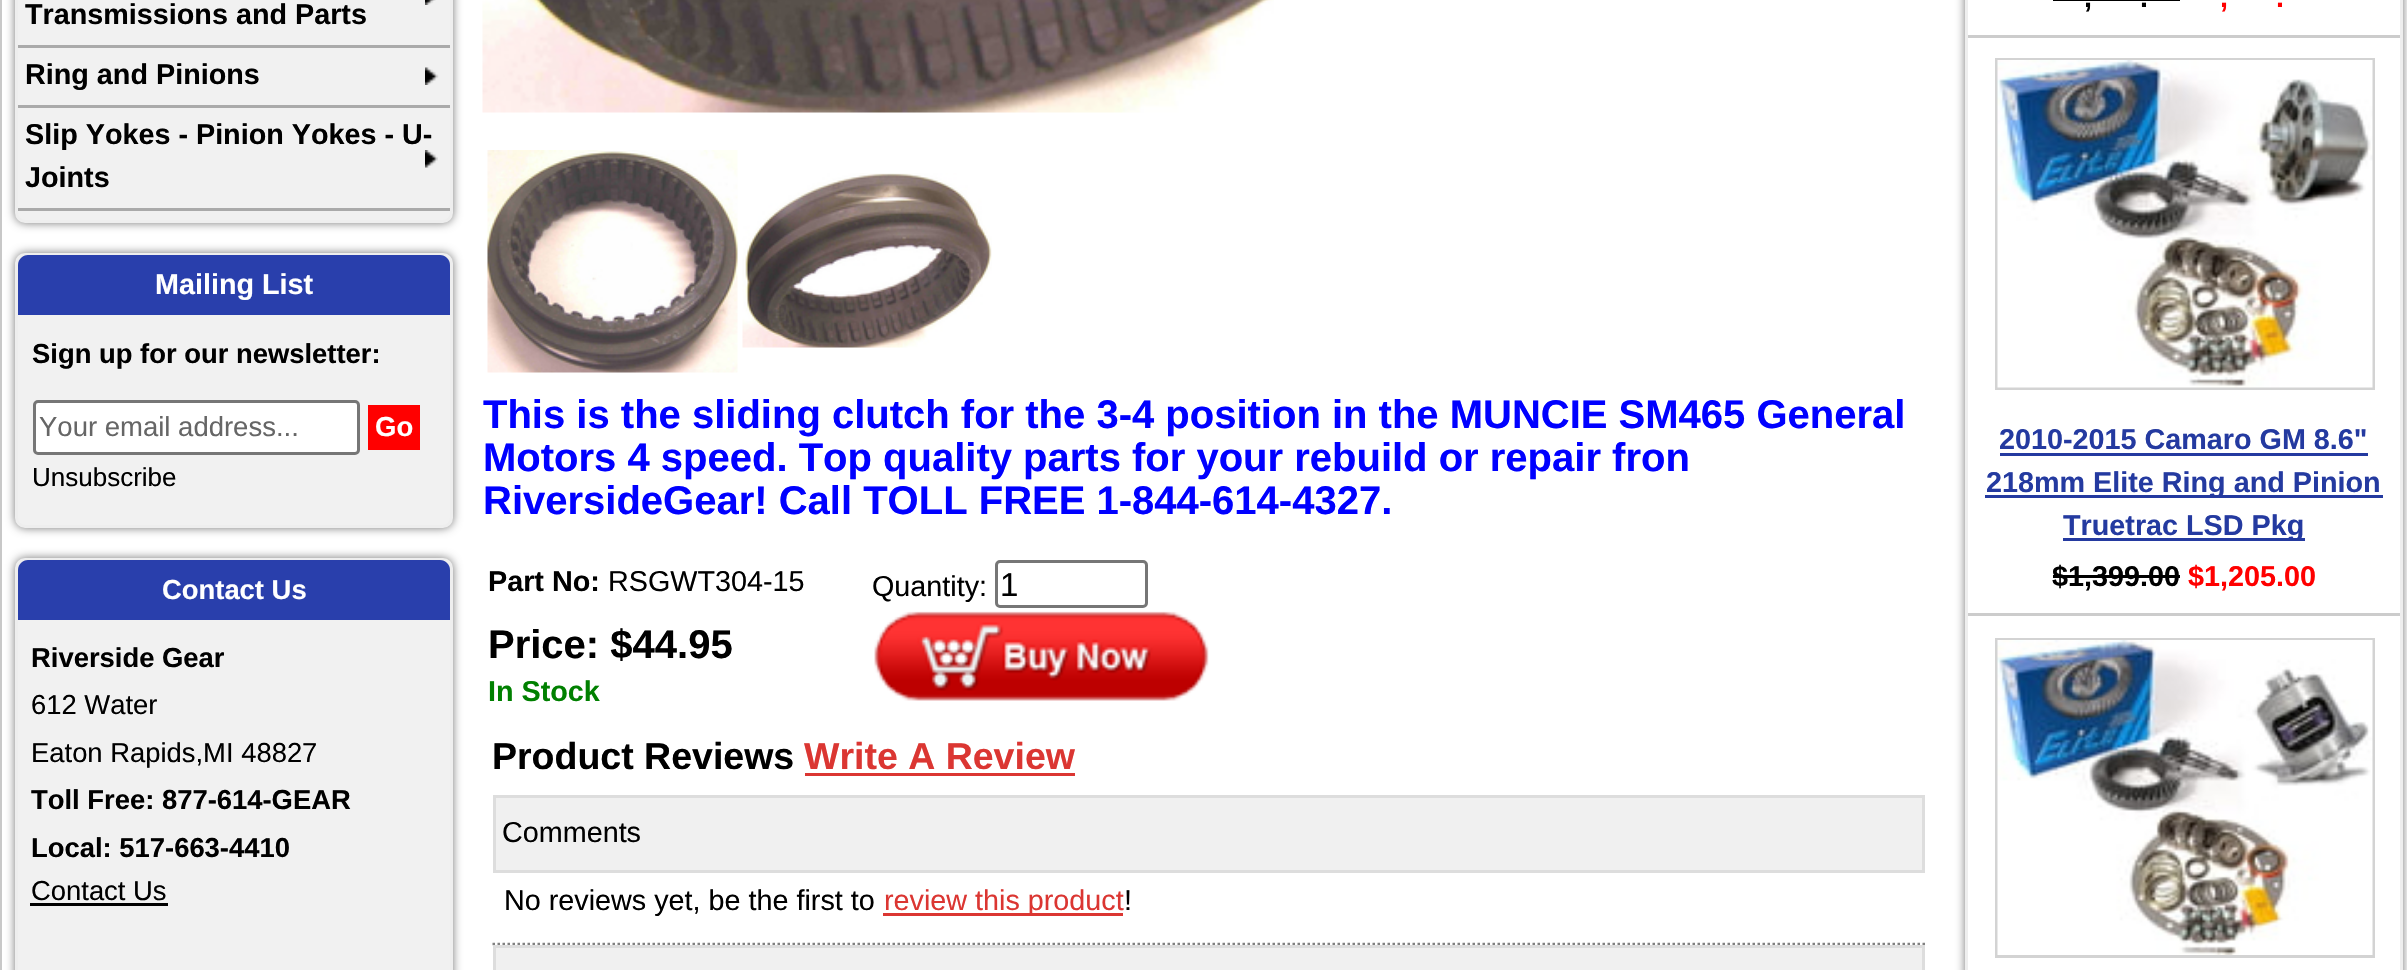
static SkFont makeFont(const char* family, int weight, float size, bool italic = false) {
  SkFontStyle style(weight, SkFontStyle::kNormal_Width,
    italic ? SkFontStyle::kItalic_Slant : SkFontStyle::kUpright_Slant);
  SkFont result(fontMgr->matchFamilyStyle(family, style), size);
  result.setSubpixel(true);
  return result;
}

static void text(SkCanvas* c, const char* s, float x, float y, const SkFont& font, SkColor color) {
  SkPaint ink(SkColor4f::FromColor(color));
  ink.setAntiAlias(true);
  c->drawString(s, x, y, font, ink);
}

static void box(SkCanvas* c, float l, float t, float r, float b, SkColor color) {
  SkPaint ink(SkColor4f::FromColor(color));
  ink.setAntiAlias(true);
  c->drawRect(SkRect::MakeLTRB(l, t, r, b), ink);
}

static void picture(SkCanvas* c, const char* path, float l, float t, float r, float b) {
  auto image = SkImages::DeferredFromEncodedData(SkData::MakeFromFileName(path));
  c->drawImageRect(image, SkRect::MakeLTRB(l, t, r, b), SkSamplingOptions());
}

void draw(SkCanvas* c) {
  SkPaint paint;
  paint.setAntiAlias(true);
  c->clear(0xffffffff);
  paint.setColor(0xffc8c8c8);
  c->drawPath(SkPathBuilder(SkPathFillType::kEvenOdd).moveTo(0, -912).lineTo(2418, -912).lineTo(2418, 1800).cubicTo(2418, 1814, 2406, 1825, 2392, 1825).lineTo(25, 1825).cubicTo(11, 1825, 0, 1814, 0, 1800).close().moveTo(2, -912).lineTo(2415, -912).lineTo(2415, 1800).cubicTo(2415, 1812, 2405, 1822, 2392, 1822).lineTo(25, 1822).cubicTo(13, 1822, 2, 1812, 2, 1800).close().detach(), paint);
  paint.setColor(0xff777777);
  paint.setMaskFilter(SkMaskFilter::MakeBlur(kNormal_SkBlurStyle, 5));
  c->drawRoundRect(SkRect::MakeLTRB(15, -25, 453, 223), 10, 10, paint);
  paint.setMaskFilter(nullptr);
  paint.setColor(0xfff1f1f1);
  c->drawRoundRect(SkRect::MakeLTRB(16.5f, -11.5f, 451.5f, 221.5f), 8.5f, 8.5f, paint);
  paint.setStyle(SkPaint::kStroke_Style);
  paint.setStrokeWidth(3);
  paint.setColor(0xffeeeeee);
  c->drawRoundRect(SkRect::MakeLTRB(16.5f, -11.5f, 451.5f, 221.5f), 8.5f, 8.5f, paint);
  picture(c, "img_01.png", 425, 0, 436, 5);
  box(c, 18, 45, 450, 48, 0xffaaaaaa);
  SkFont face1 = makeFont("Liberation Sans", 700, 28.75f);
  text(c, "Transmissions and Parts", 25, 24, face1, 0xff000000);
  picture(c, "img_02.png", 425, 67, 439, 85);
  box(c, 18, 105, 450, 108, 0xffaaaaaa);
  text(c, "Ring and Pinions", 25, 84, face1, 0xff000000);
  picture(c, "img_03.png", 425, 150, 438, 168);
  box(c, 18, 208, 450, 211, 0xffaaaaaa);
  text(c, "Slip Yokes - Pinion Yokes - U-", 25, 144, face1, 0xff000000);
  text(c, "Joints", 25, 187, face1, 0xff000000);
  paint.setStyle(SkPaint::kFill_Style);
  paint.setColor(0xff777777);
  paint.setMaskFilter(SkMaskFilter::MakeBlur(kNormal_SkBlurStyle, 5));
  c->drawRoundRect(SkRect::MakeLTRB(15, 253, 453, 528), 10, 10, paint);
  paint.setMaskFilter(nullptr);
  paint.setColor(0xfff1f1f1);
  c->drawRoundRect(SkRect::MakeLTRB(16.5f, 254.5f, 451.5f, 526.5f), 8.5f, 8.5f, paint);
  paint.setStyle(SkPaint::kStroke_Style);
  paint.setColor(0xffeeeeee);
  c->drawRoundRect(SkRect::MakeLTRB(16.5f, 254.5f, 451.5f, 526.5f), 8.5f, 8.5f, paint);
  paint.setStyle(SkPaint::kFill_Style);
  paint.setColor(0xff293fac);
  c->drawPath(SkPathBuilder().moveTo(28, 255).lineTo(440, 255).cubicTo(445.5f, 255, 450, 259.5f, 450, 265).lineTo(450, 315).lineTo(18, 315).lineTo(18, 265).cubicTo(18, 259.5f, 22.5f, 255, 28, 255).close().detach(), paint);
  text(c, "Mailing List", 155, 294, face1, 0xffffffff);
  SkFont face2 = makeFont("Liberation Sans", 700, 27.4f);
  text(c, "Sign up for our newsletter:", 32, 363, face2, 0xff000000);
  paint.setColor(0xffffffff);
  c->drawRoundRect(SkRect::MakeLTRB(34.5f, 401.5f, 358.5f, 453.5f), 3.5f, 3.5f, paint);
  paint.setStyle(SkPaint::kStroke_Style);
  paint.setColor(0xff767676);
  c->drawRoundRect(SkRect::MakeLTRB(34.5f, 401.5f, 358.5f, 453.5f), 3.5f, 3.5f, paint);
  SkFont face3 = makeFont("Liberation Sans", 400, 27.5f);
  text(c, "Your email address...", 39, 436, face3, 0xff666666);
  box(c, 368, 405, 420, 450, 0xffff0000);
  SkFont face4 = makeFont("Liberation Sans", 700, 27.5f);
  text(c, "Go", 375, 436, face4, 0xffffffff);
  SkFont face5 = makeFont("Liberation Sans", 400, 26);
  text(c, "Unsubscribe", 32, 486, face5, 0xff000000);
  paint.setStyle(SkPaint::kFill_Style);
  paint.setColor(0xff777777);
  paint.setMaskFilter(SkMaskFilter::MakeBlur(kNormal_SkBlurStyle, 5));
  c->drawRoundRect(SkRect::MakeLTRB(15, 558, 453, 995), 10, 10, paint);
  paint.setMaskFilter(nullptr);
  paint.setColor(0xfff1f1f1);
  c->drawRoundRect(SkRect::MakeLTRB(16.5f, 559.5f, 451.5f, 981.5f), 8.5f, 8.5f, paint);
  paint.setStyle(SkPaint::kStroke_Style);
  paint.setColor(0xffeeeeee);
  c->drawRoundRect(SkRect::MakeLTRB(16.5f, 559.5f, 451.5f, 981.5f), 8.5f, 8.5f, paint);
  paint.setStyle(SkPaint::kFill_Style);
  paint.setColor(0xff293fac);
  c->drawPath(SkPathBuilder().moveTo(28, 560).lineTo(440, 560).cubicTo(445.5f, 560, 450, 564.5f, 450, 570).lineTo(450, 620).lineTo(18, 620).lineTo(18, 570).cubicTo(18, 564.5f, 22.5f, 560, 28, 560).close().detach(), paint);
  text(c, "Contact Us", 162, 599, face2, 0xffffffff);
  text(c, "Riverside Gear", 31, 667, face2, 0xff000000);
  SkFont face6 = makeFont("Liberation Sans", 400, 27.4f);
  text(c, "612 Water", 31, 714, face6, 0xff000000);
  text(c, "Eaton Rapids,MI 48827", 31, 762, face6, 0xff000000);
  text(c, "Toll Free: 877-614-GEAR", 31, 809, face2, 0xff000000);
  text(c, "Local: 517-663-4410", 31, 857, face2, 0xff000000);
  text(c, "Contact Us", 31, 900, face6, 0xff000000);
  box(c, 30, 903, 168, 906, 0xff000000);
  picture(c, "img_04.png", 482, 0, 1274, 113);
  picture(c, "img_05.png", 487, 150, 738, 373);
  picture(c, "img_06.png", 742, 173, 992, 348);
  SkFont face7 = makeFont("Liberation Sans", 700, 40);
  text(c, "This is the sliding clutch for the 3-4 position in the MUNCIE SM465 General", 483, 428, face7, 0xff0000ff);
  text(c, "Motors 4 speed. Top quality parts for your rebuild or repair fron", 483, 471, face7, 0xff0000ff);
  text(c, "RiversideGear! Call TOLL FREE 1-844-614-4327.", 483, 514, face7, 0xff0000ff);
  text(c, "Part No:", 488, 591, face1, 0xff000000);
  SkFont face8 = makeFont("Liberation Sans", 400, 28.75f);
  text(c, "RSGWT304-15", 608, 591, face8, 0xff000000);
  text(c, "Price: $44.95", 488, 658, face7, 0xff000000);
  text(c, "In Stock", 488, 701, face1, 0xff008000);
  text(c, "Quantity:", 872, 596, face8, 0xff000000);
  paint.setStyle(SkPaint::kStroke_Style);
  paint.setColor(0xff767676);
  c->drawRoundRect(SkRect::MakeLTRB(996.5f, 561.5f, 1146.5f, 606.5f), 3.5f, 3.5f, paint);
  SkFont face9 = makeFont("Liberation Sans", 400, 33);
  text(c, "1", 1000, 596, face9, 0xff000000);
  picture(c, "img_07.png", 874, 611, 1209, 701);
  SkFont face10 = makeFont("Liberation Sans", 700, 37.5f);
  text(c, "Product Reviews", 492, 769, face10, 0xff000000);
  text(c, "Write A Review", 804, 769, face10, 0xffdb3632);
  box(c, 805, 773, 1075, 776, 0xffdb3632);
  paint.setStyle(SkPaint::kFill_Style);
  paint.setColor(0xfff0f0f0);
  c->drawRect(SkRect::MakeLTRB(494.5f, 796.5f, 1923.5f, 871.5f), paint);
  paint.setStyle(SkPaint::kStroke_Style);
  paint.setColor(0xffdddddd);
  c->drawRect(SkRect::MakeLTRB(494.5f, 796.5f, 1923.5f, 871.5f), paint);
  text(c, "Comments", 502, 842, face8, 0xff000000);
  paint.setStrokeWidth(2.5f);
  paint.setColor(0xff808080);
  paint.setPathEffect(SkDashPathEffect::Make({{2.5f, 2.5f}}, 0));
  c->drawPath(SkPathBuilder().moveTo(492.5f, 944).lineTo(1925, 944).detach(), paint);
  paint.setPathEffect(nullptr);
  text(c, "No reviews yet, be the first to", 504, 910, face8, 0xff000000);
  box(c, 883, 913, 1123, 916, 0xffdb3632);
  text(c, "review this product", 884, 910, face8, 0xffdb3632);
  text(c, "!", 1124, 910, face8, 0xff000000);
  paint.setStyle(SkPaint::kFill_Style);
  paint.setColor(0xfff0f0f0);
  c->drawRect(SkRect::MakeLTRB(494.5f, 946.5f, 1923.5f, 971.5f), paint);
  paint.setStyle(SkPaint::kStroke_Style);
  paint.setStrokeWidth(3);
  paint.setColor(0xffdddddd);
  c->drawRect(SkRect::MakeLTRB(494.5f, 946.5f, 1923.5f, 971.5f), paint);
  paint.setStyle(SkPaint::kFill_Style);
  paint.setColor(0xff777777);
  paint.setMaskFilter(SkMaskFilter::MakeBlur(kNormal_SkBlurStyle, 5));
  c->drawRoundRect(SkRect::MakeLTRB(1965, -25, 2403, 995), 10, 10, paint);
  paint.setMaskFilter(nullptr);
  paint.setStyle(SkPaint::kStroke_Style);
  paint.setColor(0xffeeeeee);
  c->drawRect(SkRect::MakeLTRB(1966.5f, -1.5f, 2401.5f, 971.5f), paint);
  box(c, 1968, 0, 2400, 35, 0xffffffff);
  text(c, ",", 2084, 7, face1, 0xff000000);
  text(c, ".", 2140, 7, face1, 0xff000000);
  box(c, 2053, 0, 2180, 1, 0xff000000);
  text(c, ",", 2220, 7, face1, 0xffff0000);
  text(c, ".", 2276, 7, face1, 0xffff0000);
  box(c, 1968, 38, 2400, 613, 0xffffffff);
  box(c, 1968, 35, 2400, 38, 0xffcccccc);
  paint.setColor(0xffd3d3d3);
  c->drawRect(SkRect::MakeLTRB(1996.5f, 59.5f, 2373.5f, 388.5f), paint);
  picture(c, "img_08.png", 1997, 60, 2373, 388);
  text(c, "2010-2015 Camaro GM 8.6\"", 1999, 449, face1, 0xff243aa0);
  box(c, 2000, 453, 2368, 456, 0xff243aa0);
  box(c, 1985, 495, 2383, 498, 0xff243aa0);
  text(c, "218mm Elite Ring and Pinion", 1986, 492, face1, 0xff243aa0);
  box(c, 2063, 538, 2305, 541, 0xff243aa0);
  text(c, "Truetrac LSD Pkg", 2063, 535, face1, 0xff243aa0);
  text(c, "$1,399.00", 2052, 586, face1, 0xff000000);
  box(c, 2053, 575, 2180, 578, 0xff000000);
  text(c, "$1,205.00", 2188, 586, face1, 0xffff0000);
  box(c, 1968, 616, 2400, 970, 0xffffffff);
  box(c, 1968, 613, 2400, 616, 0xffcccccc);
  c->drawRect(SkRect::MakeLTRB(1996.5f, 639.5f, 2373.5f, 956.5f), paint);
  picture(c, "img_09.png", 1997, 640, 2373, 955);
}
